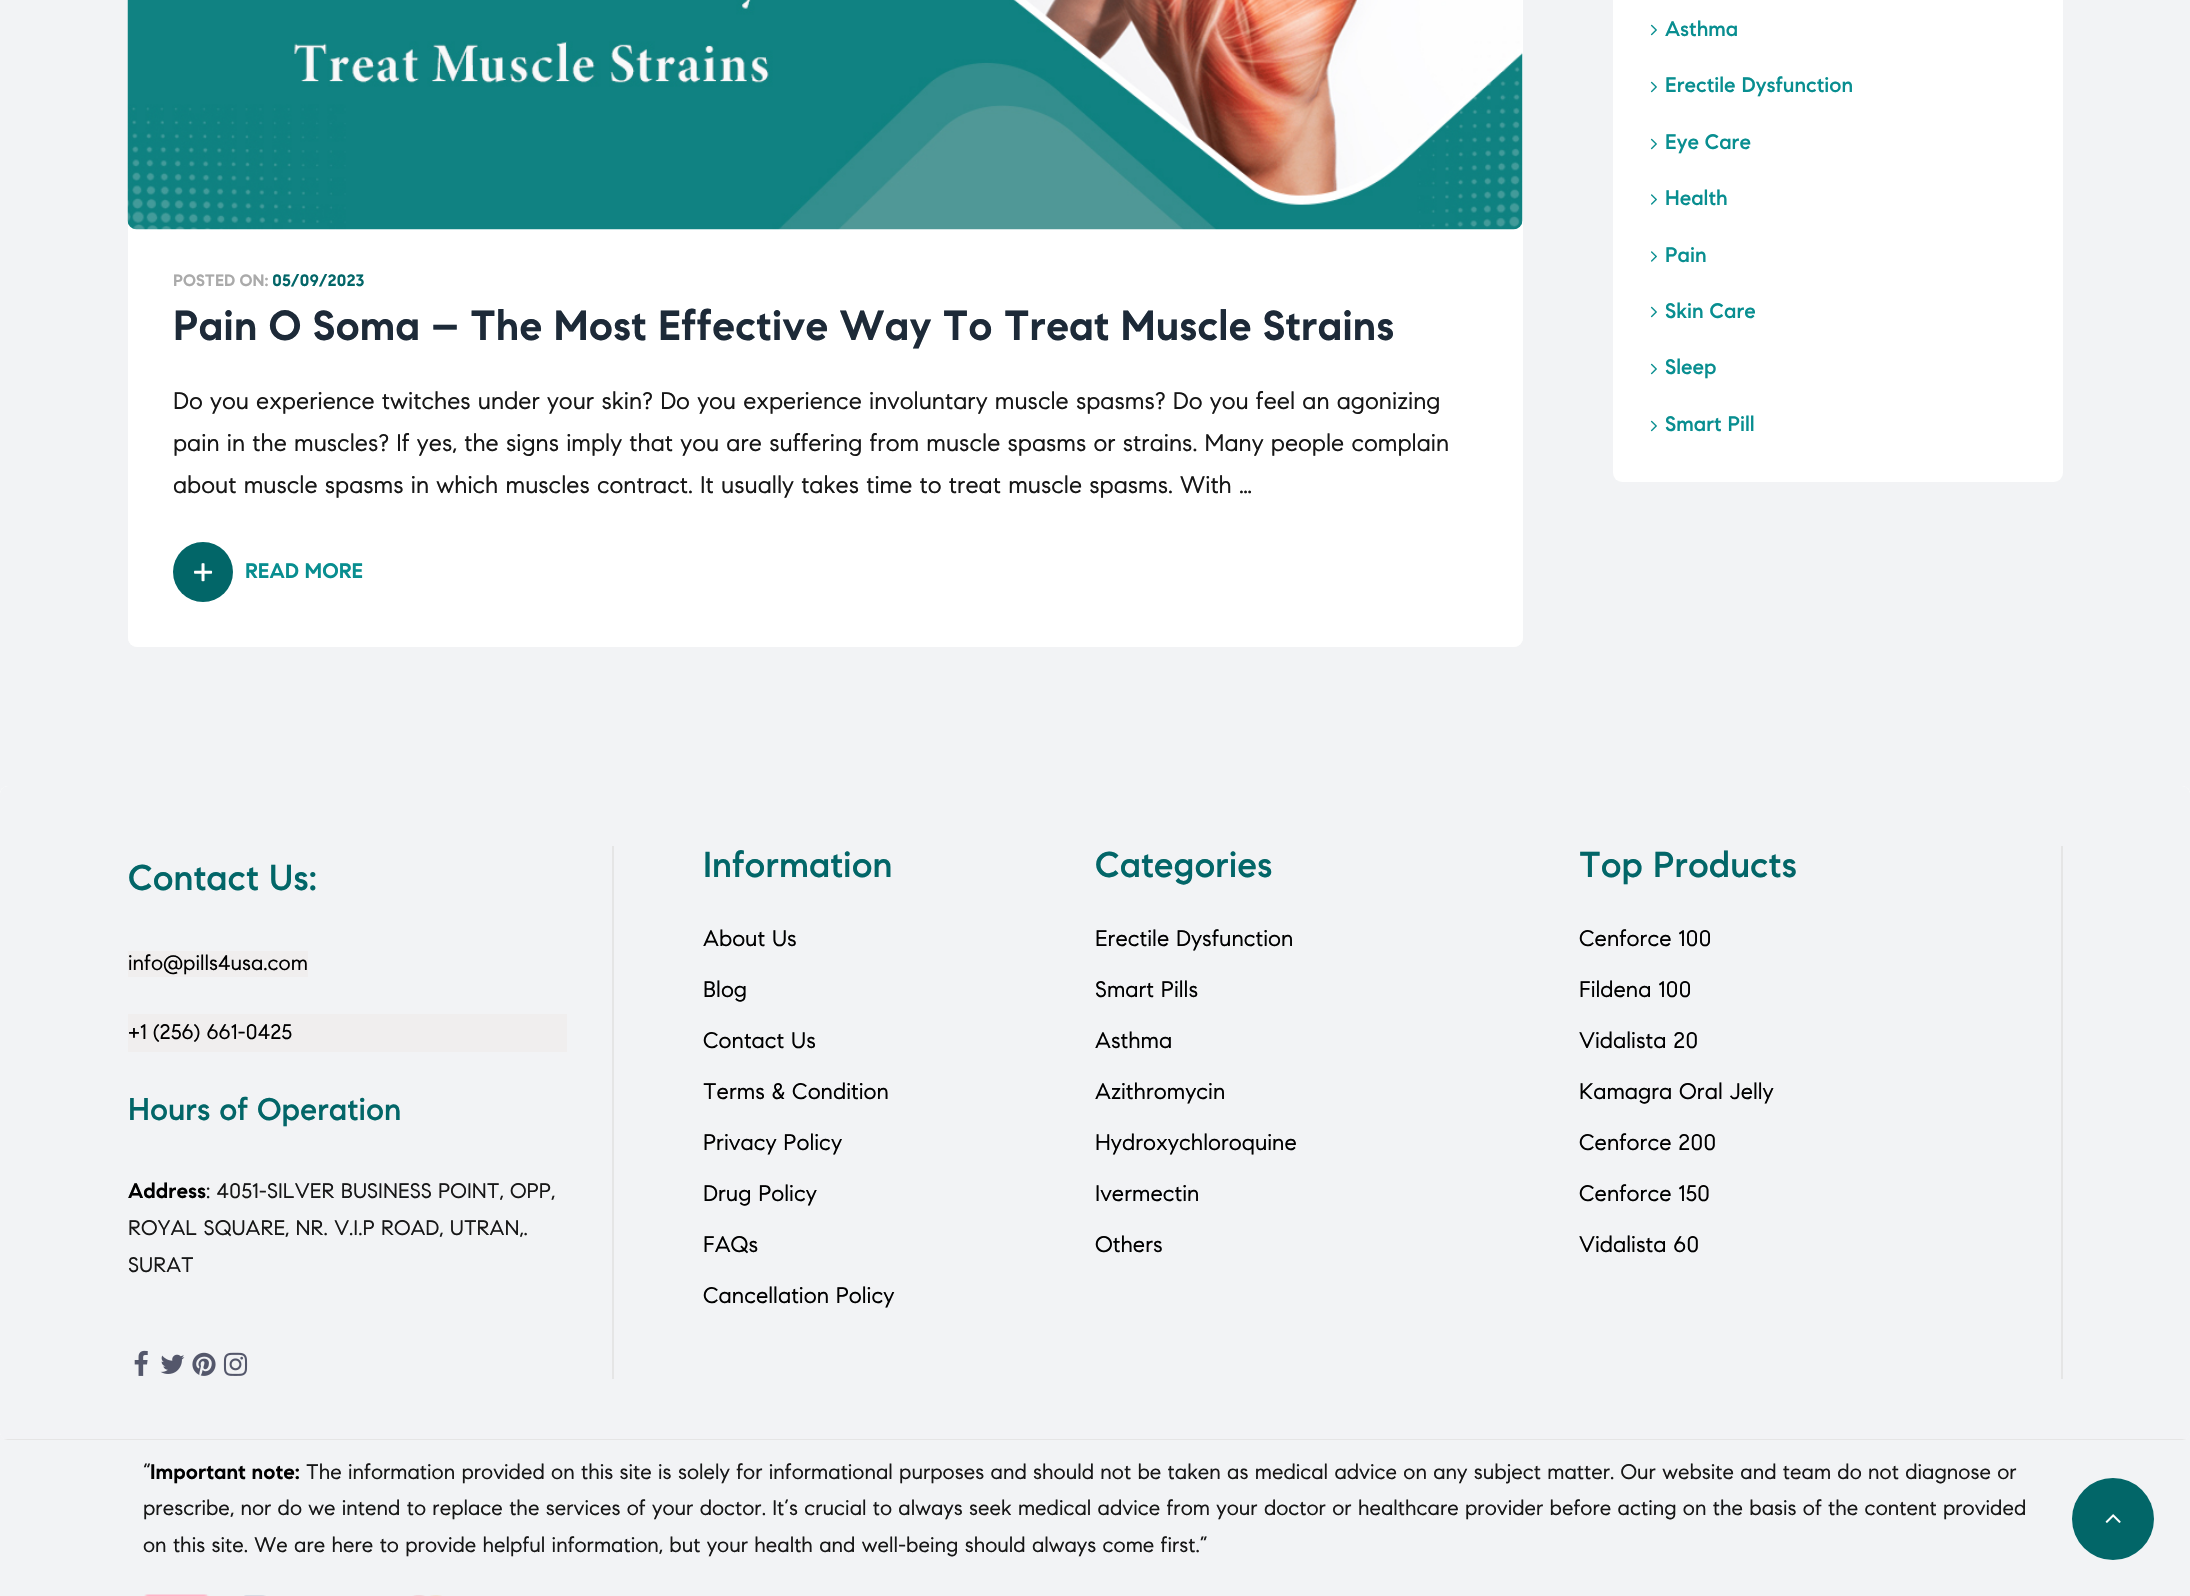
static SkFont makeFont(const char* family, int weight, float size, bool italic = false) {
  SkFontStyle style(weight, SkFontStyle::kNormal_Width,
    italic ? SkFontStyle::kItalic_Slant : SkFontStyle::kUpright_Slant);
  SkFont result(fontMgr->matchFamilyStyle(family, style), size);
  result.setSubpixel(true);
  return result;
}

static void text(SkCanvas* c, const char* s, float x, float y, const SkFont& font, SkColor color) {
  SkPaint ink(SkColor4f::FromColor(color));
  ink.setAntiAlias(true);
  c->drawString(s, x, y, font, ink);
}

static void box(SkCanvas* c, float l, float t, float r, float b, SkColor color) {
  SkPaint ink(SkColor4f::FromColor(color));
  ink.setAntiAlias(true);
  c->drawRect(SkRect::MakeLTRB(l, t, r, b), ink);
}

static void roundBox(SkCanvas* c, float l, float t, float r, float b, float radius, SkColor color) {
  SkPaint ink(SkColor4f::FromColor(color));
  ink.setAntiAlias(true);
  c->drawRoundRect(SkRect::MakeLTRB(l, t, r, b), radius, radius, ink);
}

static void picture(SkCanvas* c, const char* path, float l, float t, float r, float b) {
  auto image = SkImages::DeferredFromEncodedData(SkData::MakeFromFileName(path));
  c->drawImageRect(image, SkRect::MakeLTRB(l, t, r, b), SkSamplingOptions());
}

void draw(SkCanvas* c) {
  SkPaint paint;
  paint.setAntiAlias(true);
  c->clear(0xfff2f3f5);
  roundBox(c, 128, -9, 1523, 647, 9, 0xffffffff);
  picture(c, "img_01.png", 127, 0, 1523, 230);
  roundBox(c, 128, 266, 1523, 647, 9, 0xffffffff);
  SkFont face1 = makeFont("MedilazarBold", 700, 16.5f);
  text(c, "POSTED ON:", 173, 286, face1, 0xffaaaaaa);
  text(c, "05/09/2023", 272, 286, face1, 0xff026668);
  SkFont face2 = makeFont("MedilazarBold", 700, 42);
  text(c, "Pain O Soma – The Most Effective Way To Treat Muscle Strains", 173, 340, face2, 0xff1d2a38);
  SkFont face3 = makeFont("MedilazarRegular", 400, 24);
  text(c, "Do you experience twitches under your skin? Do you experience involuntary muscle spasms? Do you feel an agonizing", 173, 409, face3, 0xff171717);
  text(c, "pain in the muscles? If yes, the signs imply that you are suffering from muscle spasms or strains. Many people complain", 173, 451, face3, 0xff171717);
  text(c, "about muscle spasms in which muscles contract. It usually takes time to treat muscle spasms. With …", 173, 493, face3, 0xff171717);
  paint.setColor(0xff026668);
  c->drawCircle(203, 572, 30, paint);
  picture(c, "img_02.png", 194, 563, 213, 582);
  SkFont face4 = makeFont("MedilazarBold", 700, 21);
  text(c, "READ MORE", 245, 578, face4, 0xff088e90);
  roundBox(c, 1613, -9, 2063, 482, 9, 0xffffffff);
  picture(c, "img_03.png", 1650, 24, 1657, 36);
  SkFont face5 = makeFont("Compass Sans", 500, 21);
  text(c, "Asthma", 1665, 36, face5, 0xff088e90);
  picture(c, "img_03.png", 1650, 81, 1657, 93);
  text(c, "Erectile Dysfunction", 1665, 92, face5, 0xff088e90);
  picture(c, "img_03.png", 1650, 138, 1657, 150);
  text(c, "Eye Care", 1665, 149, face5, 0xff088e90);
  picture(c, "img_04.png", 1651, 194, 1657, 205);
  text(c, "Health", 1665, 205, face5, 0xff088e90);
  picture(c, "img_04.png", 1651, 251, 1657, 262);
  text(c, "Pain", 1665, 262, face5, 0xff088e90);
  picture(c, "img_03.png", 1650, 306, 1657, 318);
  text(c, "Skin Care", 1665, 318, face5, 0xff088e90);
  picture(c, "img_03.png", 1650, 363, 1657, 375);
  text(c, "Sleep", 1665, 374, face5, 0xff088e90);
  picture(c, "img_03.png", 1650, 420, 1657, 432);
  text(c, "Smart Pill", 1665, 431, face5, 0xff088e90);
  roundBox(c, 0, 786, 2190, 1440, 8, 0xffffffff);
  c->save();
  c->clipPath(SkPathBuilder().moveTo(8, 786).lineTo(2182, 786).cubicTo(2186.5f, 786, 2190, 789.5f, 2190, 794).lineTo(2190, 1432).cubicTo(2190, 1436.5f, 2186.5f, 1440, 2182, 1440).lineTo(8, 1440).cubicTo(3.5f, 1440, 0, 1436.5f, 0, 1432).lineTo(0, 794).cubicTo(0, 789.5f, 3.5f, 786, 8, 786).close().detach(), true);
  paint.setColor(0xfff2f3f5);
  c->drawPath(SkPathBuilder().moveTo(8, 786).lineTo(2182, 786).cubicTo(2186.5f, 786, 2190, 789.5f, 2190, 794).lineTo(2190, 1439).lineTo(0, 1439).lineTo(0, 794).cubicTo(0, 789.5f, 3.5f, 786, 8, 786).close().detach(), paint);
  box(c, 0, 1439, 2190, 1440, 0xffe5e5e5);
  c->restore();
  SkFont face6 = makeFont("Compass Sans", 500, 36);
  text(c, "Contact Us:", 128, 890, face6, 0xff026668);
  box(c, 128, 951, 308, 977, 0xfff0eeee);
  SkFont face7 = makeFont("MedilazarRegular", 400, 21);
  text(c, "info@pills4usa.com", 128, 970, face7, 0xff000000);
  box(c, 128, 1014, 567, 1052, 0xfff0eeee);
  text(c, "+1 (256) 661-0425", 128, 1039, face7, 0xff000000);
  SkFont face8 = makeFont("Compass Sans", 500, 31.25f);
  text(c, "Hours of Operation", 128, 1120, face8, 0xff026668);
  text(c, "Address", 128, 1198, face4, 0xff000000);
  text(c, ": 4051-SILVER BUSINESS POINT, OPP,", 206, 1198, face7, 0xff171717);
  text(c, "ROYAL SQUARE, NR. V.I.P ROAD, UTRAN,.", 128, 1235, face7, 0xff171717);
  text(c, "SURAT", 128, 1272, face7, 0xff171717);
  picture(c, "img_05.png", 134, 1350, 148, 1376);
  picture(c, "img_06.png", 160, 1354, 185, 1374);
  picture(c, "img_07.png", 192, 1352, 216, 1376);
  picture(c, "img_08.png", 223, 1352, 248, 1376);
  box(c, 612, 846, 614, 1379, 0xffe5e5e5);
  text(c, "Information", 703, 877, face6, 0xff026668);
  SkFont face9 = makeFont("MedilazarRegular", 400, 22.5f);
  text(c, "About Us", 703, 946, face9, 0xff000000);
  text(c, "Blog", 703, 997, face9, 0xff000000);
  text(c, "Contact Us", 703, 1048, face9, 0xff000000);
  text(c, "Terms & Condition", 703, 1099, face9, 0xff000000);
  text(c, "Privacy Policy", 703, 1150, face9, 0xff000000);
  text(c, "Drug Policy", 703, 1201, face9, 0xff000000);
  text(c, "FAQs", 703, 1252, face9, 0xff000000);
  text(c, "Cancellation Policy", 703, 1303, face9, 0xff000000);
  text(c, "Categories", 1095, 877, face6, 0xff026668);
  text(c, "Erectile Dysfunction", 1095, 946, face9, 0xff000000);
  text(c, "Smart Pills", 1095, 997, face9, 0xff000000);
  text(c, "Asthma", 1095, 1048, face9, 0xff000000);
  text(c, "Azithromycin", 1095, 1099, face9, 0xff000000);
  text(c, "Hydroxychloroquine", 1095, 1150, face9, 0xff000000);
  text(c, "Ivermectin", 1095, 1201, face9, 0xff000000);
  text(c, "Others", 1095, 1252, face9, 0xff000000);
  box(c, 2061, 846, 2063, 1379, 0xffe5e5e5);
  text(c, "Top Products", 1579, 877, face6, 0xff026668);
  text(c, "Cenforce 100", 1579, 946, face9, 0xff000000);
  text(c, "Fildena 100", 1579, 997, face9, 0xff000000);
  text(c, "Vidalista 20", 1579, 1048, face9, 0xff000000);
  text(c, "Kamagra Oral Jelly", 1579, 1099, face9, 0xff000000);
  text(c, "Cenforce 200", 1579, 1150, face9, 0xff000000);
  text(c, "Cenforce 150", 1579, 1201, face9, 0xff000000);
  text(c, "Vidalista 60", 1579, 1252, face9, 0xff000000);
  text(c, "“", 143, 1479, face7, 0xff171717);
  text(c, "Important note:", 150, 1479, face4, 0xff000000);
  text(c, "The information provided on this site is solely for informational purposes and should not be taken as medical advice on any subject matter. Our website and team do not diagnose or", 306, 1479, face7, 0xff171717);
  text(c, "prescribe, nor do we intend to replace the services of your doctor. It’s crucial to always seek medical advice from your doctor or healthcare provider before acting on the basis of the content provided", 143, 1515, face7, 0xff171717);
  text(c, "on this site. We are here to provide helpful information, but your health and well-being should always come first.”", 143, 1552, face7, 0xff171717);
  picture(c, "img_09.png", 144, 1594, 442, 1596);
  paint.setColor(0xff026668);
  c->drawCircle(2113, 1519, 41, paint);
  picture(c, "img_10.png", 2105, 1514, 2121, 1523);
}
